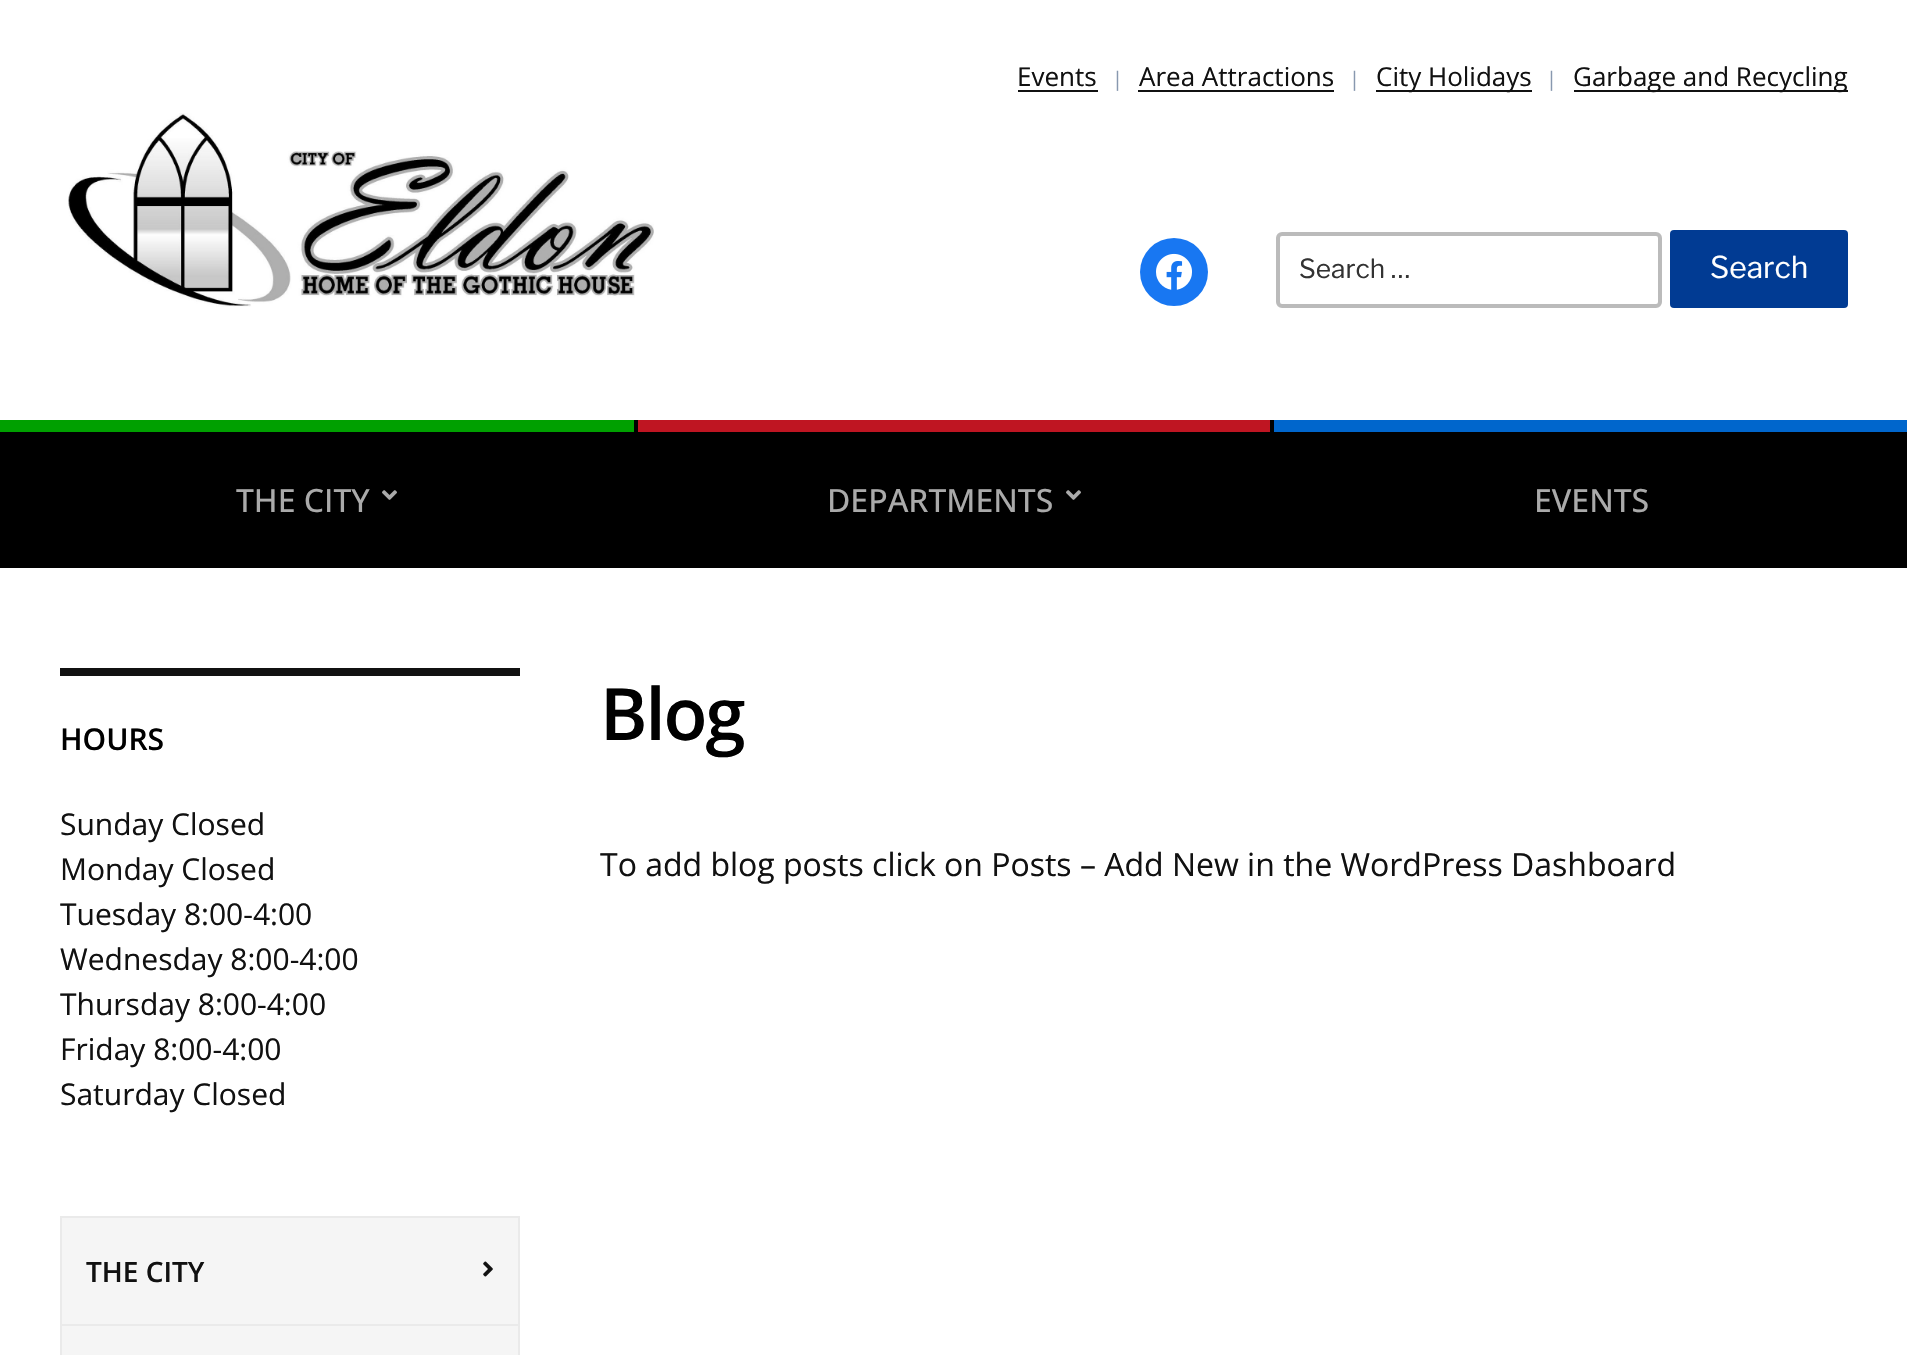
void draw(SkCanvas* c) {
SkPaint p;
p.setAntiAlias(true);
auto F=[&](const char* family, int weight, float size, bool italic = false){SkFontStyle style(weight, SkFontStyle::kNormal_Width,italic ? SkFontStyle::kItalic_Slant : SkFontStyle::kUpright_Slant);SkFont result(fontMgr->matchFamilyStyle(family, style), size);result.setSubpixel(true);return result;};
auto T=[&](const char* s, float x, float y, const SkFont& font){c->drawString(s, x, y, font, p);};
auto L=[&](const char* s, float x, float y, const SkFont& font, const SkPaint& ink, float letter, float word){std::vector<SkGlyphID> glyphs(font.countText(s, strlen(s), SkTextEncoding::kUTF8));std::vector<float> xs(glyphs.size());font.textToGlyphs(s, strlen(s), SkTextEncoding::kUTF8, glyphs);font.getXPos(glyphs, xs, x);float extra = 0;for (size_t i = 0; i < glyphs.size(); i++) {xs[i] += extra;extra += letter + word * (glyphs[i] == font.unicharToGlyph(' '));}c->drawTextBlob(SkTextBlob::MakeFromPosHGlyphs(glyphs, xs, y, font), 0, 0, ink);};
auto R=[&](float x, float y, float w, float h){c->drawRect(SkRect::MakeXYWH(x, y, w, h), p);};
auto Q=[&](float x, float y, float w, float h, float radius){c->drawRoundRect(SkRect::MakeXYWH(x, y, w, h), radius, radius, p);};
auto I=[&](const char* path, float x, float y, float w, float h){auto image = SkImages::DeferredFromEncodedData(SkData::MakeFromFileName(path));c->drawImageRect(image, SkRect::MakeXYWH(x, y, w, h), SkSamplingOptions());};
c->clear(0xffffffff);
I("1.png",68,113,586,194);
auto f1 = F("Open Sans",400,26);
p.setColor(0xff111111);
T("Events",1017,86,f1);
R(1018,90,80,2);
auto f2 = F("Open Sans",400,20);
p.setColor(0xff8898af);
T("|",1112,86,f2);
p.setColor(0xff111111);
T("Area Attractions",1139,86,f1);
R(1138,90,196,2);
p.setColor(0xff8898af);
T("|",1349,86,f2);
p.setColor(0xff111111);
R(1376,90,156,2);
T("City Holidays",1376,86,f1);
p.setColor(0xff8898af);
T("|",1546,86,f2);
p.setColor(0xff111111);
R(1574,90,274,2);
T("Garbage and Recycling",1573,86,f1);
p.setColor(0xff1877f2);
c->drawCircle(1174,272,34,p);
I("2.png",1156,253,36,37);
p.setStroke(true);
p.setStrokeWidth(4);
p.setColor(0xffbbbbbb);
c->drawRoundRect(SkRect::MakeXYWH(1278,234,382,72),4,4,p);
auto f3 = F("Libre Franklin",400,26.25);
p.setStroke(false);
p.setColor(0xff333333);
T("Search …",1299,278,f3);
p.setColor(0xff013b93);
Q(1670,230,178,78,4);
auto f4 = F("Libre Franklin",400,30);
p.setColor(0xffffffff);
T("Search",1710,278,f4);
p.setColor(0xff000000);
R(634,420,4,148);
R(0,432,634,136);
p.setColor(0xff00a000);
R(0,420,634,12);
auto f5 = F("Open Sans",500,32);
p.setColor(0xffaaaaaa);
T("THE CITY",236,512,f5);
I("3.png",382,490,15,10);
p.setColor(0xff000000);
R(1270,420,4,148);
R(638,432,632,136);
p.setColor(0xffbf1522);
R(638,420,632,12);
p.setColor(0xffaaaaaa);
T("DEPARTMENTS",827,512,f5);
I("3.png",1066,490,15,10);
p.setColor(0xff000000);
R(1274,432,633,136);
p.setColor(0xff0066cc);
R(1274,420,633,12);
p.setColor(0xffaaaaaa);
T("EVENTS",1534,512,f5);
p.setColor(0xff111111);
R(60,668,460,8);
auto f6 = F("Open Sans",600,30);
p.setColor(0xff000000);
T("HOURS",60,750,f6);
auto f7 = F("Open Sans",400,30);
p.setColor(0xff111111);
T("Sunday Closed",60,835,f7);
T("Monday Closed",60,880,f7);
T("Tuesday 8:00-4:00",60,925,f7);
T("Wednesday 8:00-4:00",60,970,f7);
T("Thursday 8:00-4:00",60,1015,f7);
T("Friday 8:00-4:00",60,1060,f7);
T("Saturday Closed",60,1105,f7);
p.setColor(0xfff5f5f5);
R(62,1218,456,106);
p.setColor(0xffeaeaea);
R(60,1216,460,2);
R(518,1216,2,108);
R(60,1216,2,108);
auto f8 = F("Open Sans",600,28);
p.setColor(0xff111111);
T("THE CITY",86,1282,f8);
I("4.png",483,1261,10,16);
p.setColor(0xfff5f5f5);
R(62,1326,456,29);
p.setColor(0xffeaeaea);
R(60,1324,460,2);
R(518,1324,2,31);
R(60,1324,2,31);
auto f9 = F("Open Sans",600,72);
p.setColor(0xff000000);
L("Blog",600,740,f9,p,-2,0);
auto f10 = F("Open Sans",400,32);
p.setColor(0xff111111);
T("To add blog posts click on Posts – Add New in the WordPress Dashboard",600,876,f10);
}
